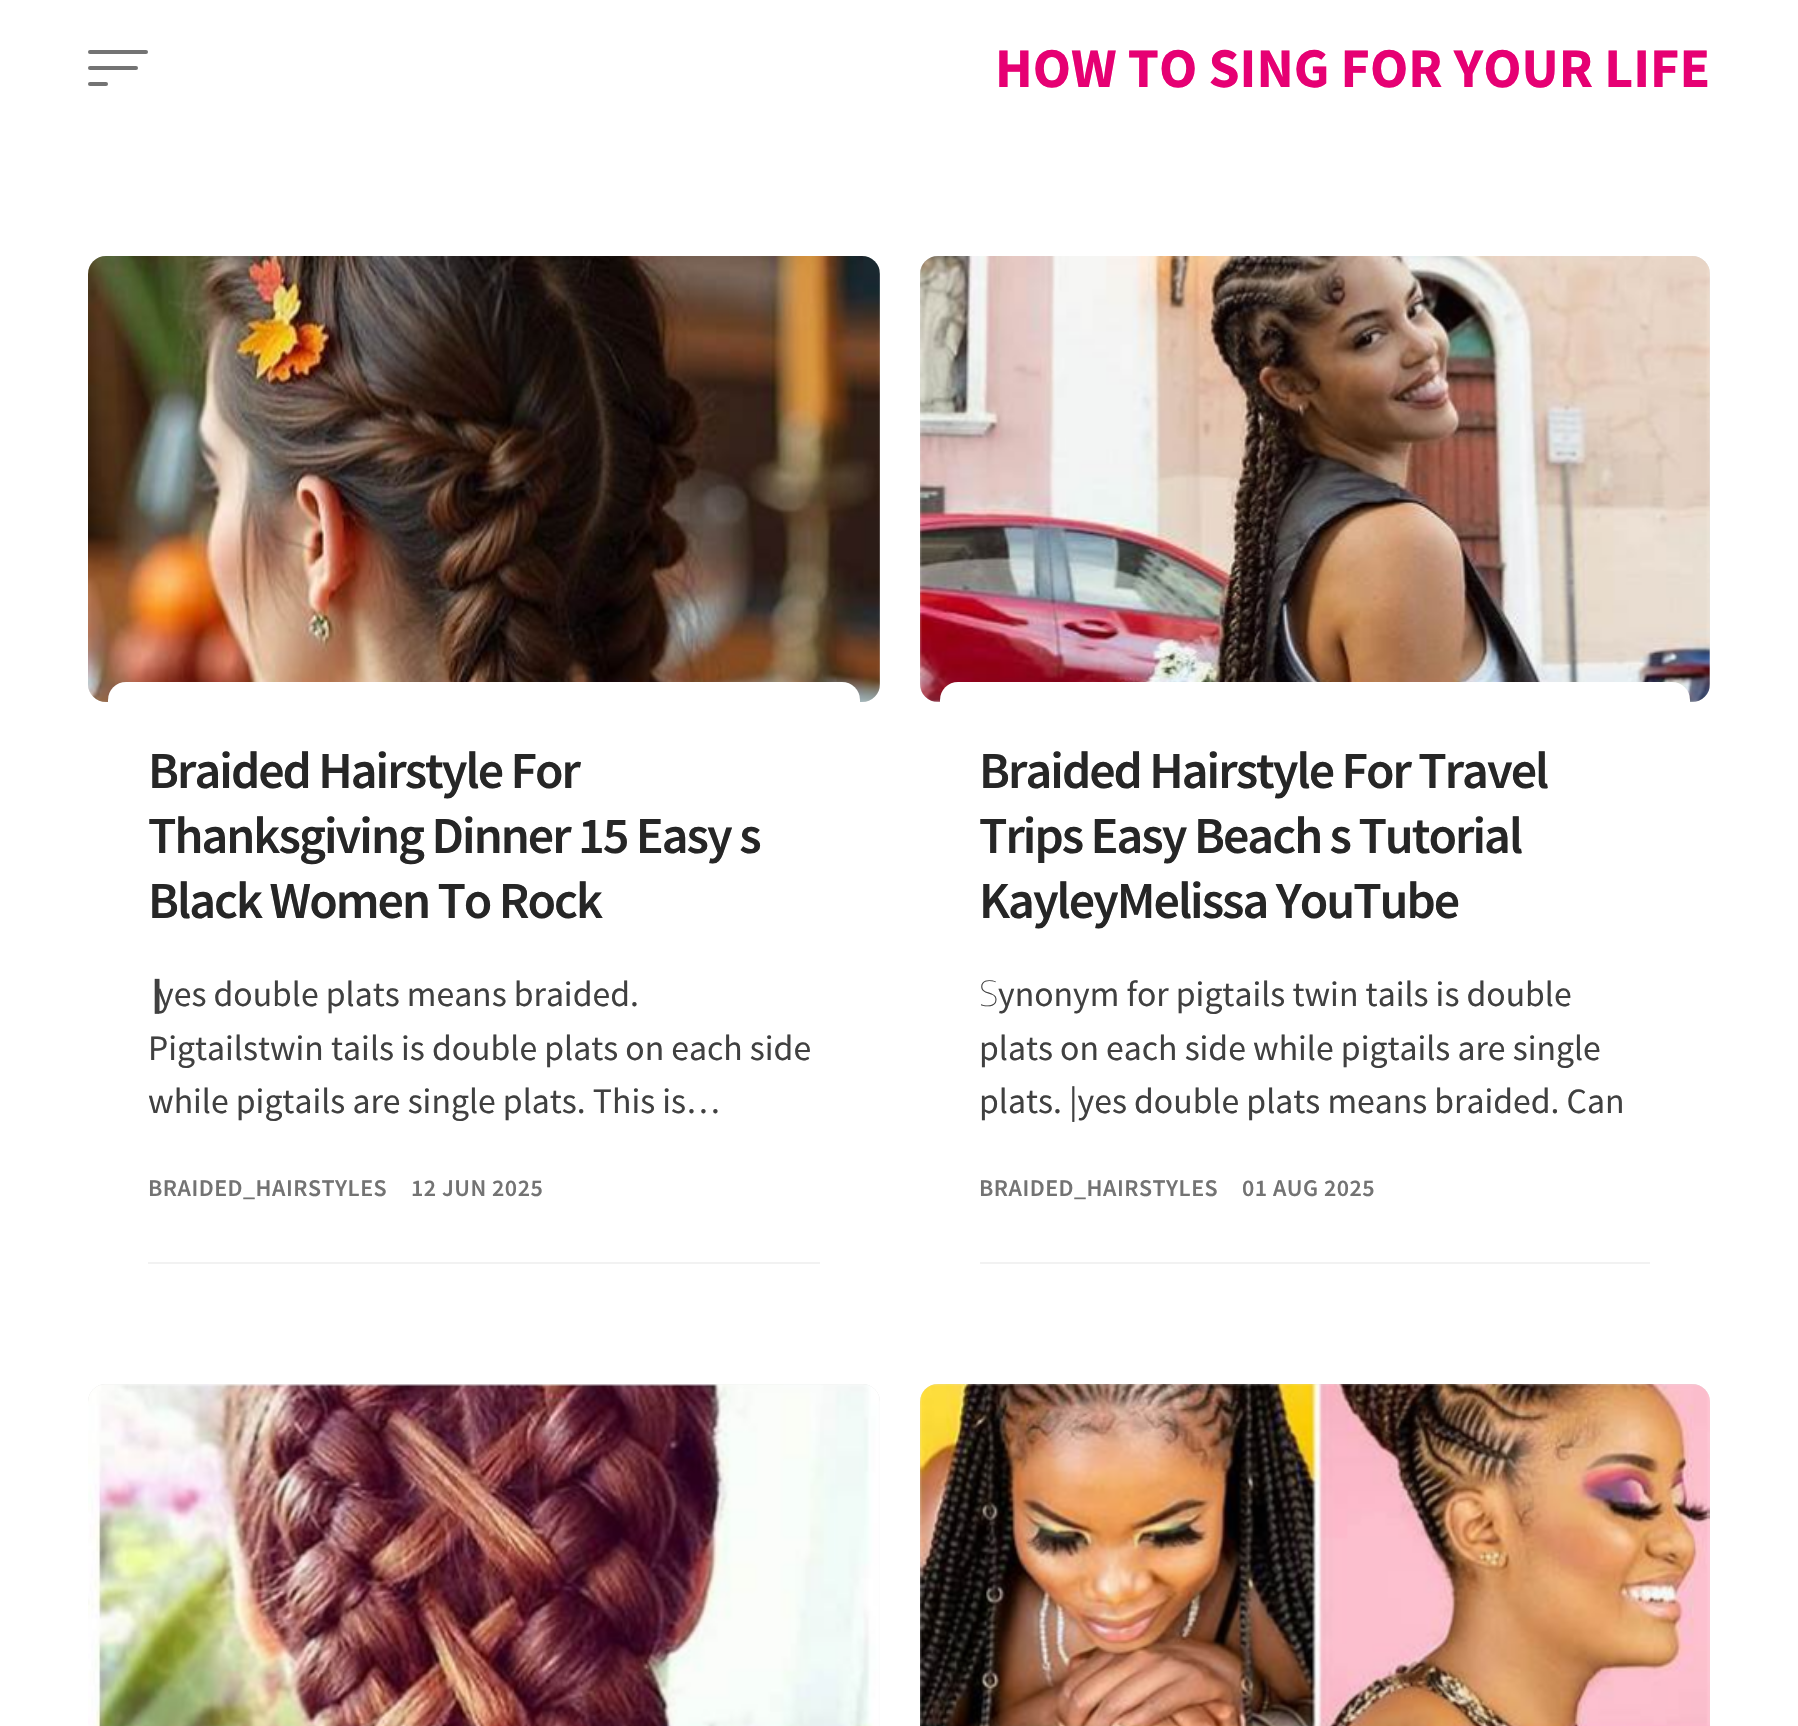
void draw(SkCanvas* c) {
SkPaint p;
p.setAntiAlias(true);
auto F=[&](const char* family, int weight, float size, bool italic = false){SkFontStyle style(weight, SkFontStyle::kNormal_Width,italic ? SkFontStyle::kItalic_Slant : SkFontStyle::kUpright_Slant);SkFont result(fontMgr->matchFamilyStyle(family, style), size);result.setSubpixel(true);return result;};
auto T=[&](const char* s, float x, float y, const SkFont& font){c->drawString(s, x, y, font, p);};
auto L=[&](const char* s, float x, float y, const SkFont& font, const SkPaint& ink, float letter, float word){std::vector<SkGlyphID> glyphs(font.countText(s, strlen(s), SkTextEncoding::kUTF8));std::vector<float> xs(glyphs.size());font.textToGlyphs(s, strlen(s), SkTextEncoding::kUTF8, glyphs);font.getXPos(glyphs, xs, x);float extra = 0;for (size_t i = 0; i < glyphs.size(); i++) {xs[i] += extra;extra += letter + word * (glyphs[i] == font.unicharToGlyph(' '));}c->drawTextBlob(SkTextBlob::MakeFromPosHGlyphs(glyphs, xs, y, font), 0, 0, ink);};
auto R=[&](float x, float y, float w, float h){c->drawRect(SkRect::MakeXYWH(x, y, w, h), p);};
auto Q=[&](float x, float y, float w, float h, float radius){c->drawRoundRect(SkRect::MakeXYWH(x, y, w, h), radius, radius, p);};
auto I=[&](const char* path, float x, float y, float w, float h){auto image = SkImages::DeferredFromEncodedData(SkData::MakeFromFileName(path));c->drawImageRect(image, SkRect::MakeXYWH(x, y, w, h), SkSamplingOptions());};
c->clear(0xffffffff);
p.setColor(0xff737373);
Q(88,50,60,4,2);
Q(88,66,50,4,2);
Q(88,82,20,4,2);
auto f1 = F("Source Sans Pro",700,56);
p.setColor(0xffe60073);
T("HOW TO SING FOR YOUR LIFE",995,87,f1);
p.setColor(0xffe1e1e1);
Q(88,256,792,446,18);
I("1.png",88,256,792,446);
p.setColor(0xffffffff);
Q(108,682,752,582,18);
auto f2 = F("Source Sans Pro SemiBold",600,52);
p.setColor(0xff262626);
L("Braided Hairstyle For",148,788,f2,p,-2,0);
L("Thanksgiving Dinner 15 Easy s",148,853,f2,p,-2,0);
L("Black Women To Rock",148,918,f2,p,-2,0);
auto f3 = F("Noto Sans",900,35.7);
p.setColor(0xff404040);
T("|",148,1006,f3);
auto f4 = F("Source Sans Pro",400,35.7);
T("yes double plats means braided.",157,1006,f4);
T("Pigtailstwin tails is double plats on each side",148,1060,f4);
T("while pigtails are single plats. This is…",148,1113,f4);
p.setColor(0xfff2f2f2);
R(148,1262,672,2);
auto f5 = F("Source Sans Pro SemiBold",600,24);
p.setColor(0xff737373);
L("BRAIDED_HAIRSTYLES",148,1196,f5,p,.5,0);
L("12 JUN 2025",411,1196,f5,p,.5,0);
p.setColor(0xffe1e1e1);
Q(920,256,790,446,18);
I("2.png",920,256,790,446);
p.setColor(0xffffffff);
Q(940,682,750,582,18);
p.setColor(0xff262626);
L("Braided Hairstyle For Travel",979,788,f2,p,-2,0);
L("Trips Easy Beach s Tutorial",979,853,f2,p,-2,0);
L("KayleyMelissa YouTube",979,918,f2,p,-2,0);
auto f6 = F("Noto Sans",100,35.7);
p.setColor(0xff404040);
T("S",979,1006,f6);
T("ynonym for pigtails twin tails is double",998,1006,f4);
T("plats on each side while pigtails are single",979,1060,f4);
T("plats. |yes double plats means braided. Can",979,1113,f4);
p.setColor(0xfff2f2f2);
R(980,1262,670,2);
p.setColor(0xff737373);
L("BRAIDED_HAIRSTYLES",979,1196,f5,p,.5,0);
L("01 AUG 2025",1242,1196,f5,p,.5,0);
p.setColor(0xffe1e1e1);
Q(88,1384,792,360,18);
I("3.png",88,1384,792,342);
Q(920,1384,790,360,18);
I("4.png",920,1384,790,342);
}
